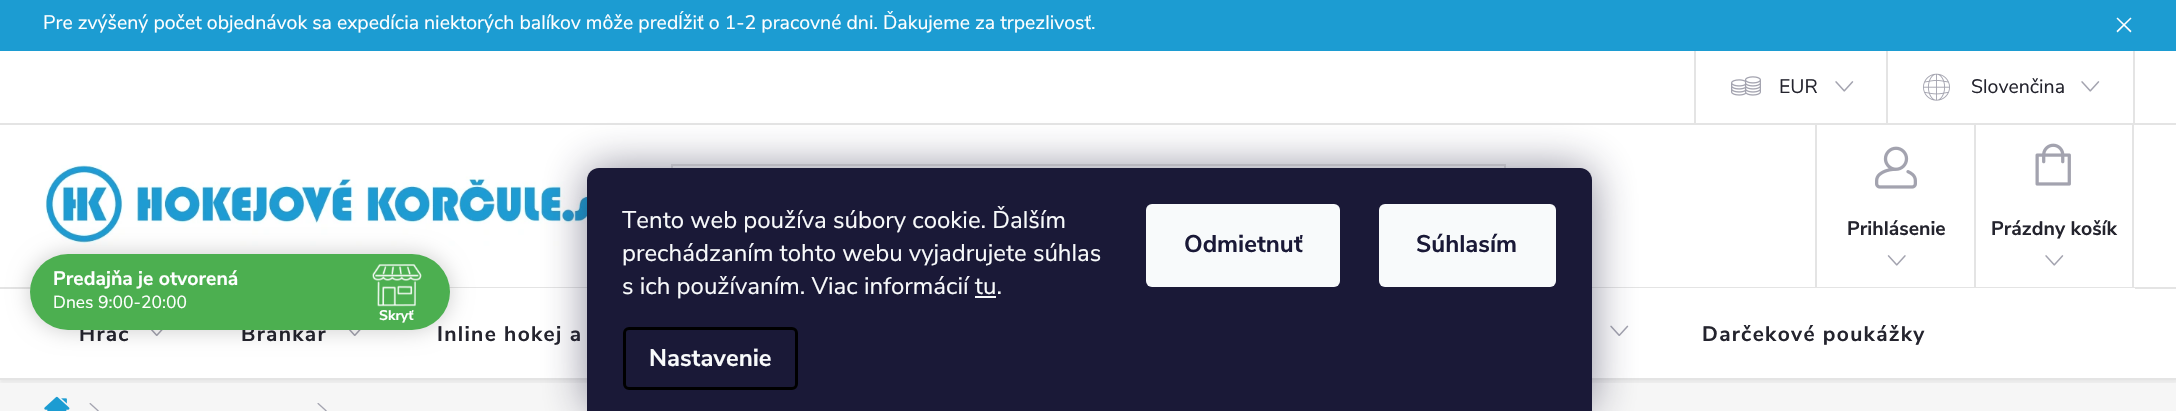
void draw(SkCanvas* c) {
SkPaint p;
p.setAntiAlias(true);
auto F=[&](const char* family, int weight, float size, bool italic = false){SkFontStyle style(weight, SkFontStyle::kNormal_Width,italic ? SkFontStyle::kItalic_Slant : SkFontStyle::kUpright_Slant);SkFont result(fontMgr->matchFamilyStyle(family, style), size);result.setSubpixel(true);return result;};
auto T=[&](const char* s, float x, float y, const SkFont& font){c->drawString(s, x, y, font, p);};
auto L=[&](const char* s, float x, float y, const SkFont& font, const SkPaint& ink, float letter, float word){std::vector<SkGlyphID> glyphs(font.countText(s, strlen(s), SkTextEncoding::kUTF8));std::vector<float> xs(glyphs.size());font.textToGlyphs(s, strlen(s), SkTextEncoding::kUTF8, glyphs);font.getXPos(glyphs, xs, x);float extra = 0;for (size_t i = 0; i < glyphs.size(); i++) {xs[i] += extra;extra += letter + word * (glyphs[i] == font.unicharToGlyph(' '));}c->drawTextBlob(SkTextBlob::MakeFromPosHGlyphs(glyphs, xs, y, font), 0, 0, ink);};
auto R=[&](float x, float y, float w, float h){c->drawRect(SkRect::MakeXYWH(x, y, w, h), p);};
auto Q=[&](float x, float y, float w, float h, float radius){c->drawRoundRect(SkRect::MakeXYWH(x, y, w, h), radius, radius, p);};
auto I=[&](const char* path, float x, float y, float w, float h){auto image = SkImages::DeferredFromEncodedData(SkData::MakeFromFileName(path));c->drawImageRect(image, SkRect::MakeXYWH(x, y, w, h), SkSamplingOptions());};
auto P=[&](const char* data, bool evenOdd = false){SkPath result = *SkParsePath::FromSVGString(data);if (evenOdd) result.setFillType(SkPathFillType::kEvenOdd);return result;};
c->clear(0xffffffff);
p.setColor(0xff1c9cd2);
R(0,0,2176,51);
auto f1 = F("Nunito Sans",400,19.5);
p.setColor(0xffffffff);
T("Pre zvýšený počet objednávok sa expedícia niektorých balíkov môže predĺžiť o 1-2 pracovné dni. Ďakujeme za trpezlivosť.",43,29,f1);
c->drawPath(P("M2130.5 17.5l1 1l-14 14l-1-1.5z"),p);
c->drawPath(P("M2117.5 17.5l14 13.5l-1 1.5l-14-14z"),p);
p.setColor(0xffe4e4e4);
R(0,123,2176,2);
R(2133,51,2,72);
R(1694,51,2,72);
I("1.png",1731,76,30,20);
p.setColor(0xff24242e);
T("EUR",1779,93,f1);
I("2.png",1835,81,19,11);
p.setColor(0xffe4e4e4);
R(1886,51,2,72);
I("3.png",1923,73,27,28);
p.setColor(0xff24242e);
T("Slovenčina",1971,93,f1);
I("2.png",2081,81,19,11);
I("4.png",45,165,578,81);
p.setStroke(true);
p.setStrokeWidth(2);
p.setColor(0xffe4e4e4);
c->drawRect(SkRect::MakeXYWH(672,165,833,82),p);
p.setStroke(false);
R(1815,125,2,162);
I("5.png",1875,146,42,43);
auto f2 = F("Nunito Sans",700,19.5);
p.setColor(0xff24242e);
T("Prihlásenie",1847,235,f2);
I("6.png",1887,255,19,11);
p.setColor(0xffe4e4e4);
R(2132,125,2,162);
R(1974,125,2,162);
I("7.png",2035,143,36,43);
p.setColor(0xff24242e);
T("Prázdny košík",1991,235,f2);
I("2.png",2045,255,19,11);
p.setColor(0xfff6f6f6);
R(0,380,2176,31);
c->save();
c->clipRect(SkRect::MakeXYWH(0,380,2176,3));
p.setColor(0x0d000000);
p.setMaskFilter(SkMaskFilter::MakeBlur(kNormal_SkBlurStyle, 1.5));
c->drawRect(SkRect::MakeXYWH(0,290,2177,93),p);
p.setMaskFilter(nullptr);
c->restore();
p.setColor(0xffe4e4e4);
R(0,287,2176,2);
p.setColor(0xffffffff);
R(44,288,2091,1);
auto f3 = F("Nunito Sans",700,21);
p.setColor(0xff24242e);
L("Hráč",79,341,f3,p,1.3,0);
I("8.png",151,330,12,6);
L("Brankár",241,341,f3,p,1.3,0);
I("8.png",349,330,12,6);
L("Inline hokej a",437,341,f3,p,1.3,0);
I("9.png",1610,325,19,11);
L("Darčekové poukážky",1702,341,f3,p,1.3,0);
p.setColor(0xffe4e4e4);
R(0,378,2176,2);
I("10.png",44,396,26,15);
I("11.png",89,403,10,8);
I("12.png",317,403,10,8);
p.setColor(0x33000000);
p.setMaskFilter(SkMaskFilter::MakeBlur(kNormal_SkBlurStyle, 11));
c->drawRoundRect(SkRect::MakeXYWH(30,254,420,76),38,38,p);
p.setMaskFilter(nullptr);
p.setColor(0xff4caf50);
Q(30,254,420,76,38);
p.setColor(0xffffffff);
T("Predajňa je otvorená",53,285,f2);
auto f4 = F("Nunito Sans",400,17.5);
T("Dnes 9:00-20:00",53,308,f4);
I("13.png",372,264,50,43);
auto f5 = F("Nunito Sans",700,14);
T("Skryť",379,320,f5);
p.setColor(0x801b1939);
p.setMaskFilter(SkMaskFilter::MakeBlur(kNormal_SkBlurStyle, 22.5));
c->drawRoundRect(SkRect::MakeXYWH(587,168,1005,243),12,12,p);
p.setMaskFilter(nullptr);
p.setColor(0xff1a1937);
c->drawPath(P("M599 168h981c6.5 0 12 5.5 12 12v231h-1005v-231c0-6.5 5.5-12 12-12z"),p);
auto f6 = F("Nunito Sans",400,24);
p.setColor(0xfff8fafb);
T("Tento web používa súbory cookie. Ďalším",622,228,f6);
T("prechádzaním tohto webu vyjadrujete súhlas",622,261,f6);
T("s ich používaním. Viac informácií tu.",622,294,f6);
R(975,296,21,2);
p.setStroke(true);
p.setStrokeWidth(3);
p.setColor(0xff000000);
c->drawRoundRect(SkRect::MakeXYWH(624.5,328.5,172,60),4.5,4.5,p);
auto f7 = F("Nunito Sans",700,24);
p.setStroke(false);
p.setColor(0xfff8fafb);
T("Nastavenie",649,366,f7);
Q(1146,204,194,83,6);
p.setColor(0xff1a1937);
T("Odmietnuť",1184,252,f7);
p.setColor(0xfff8fafb);
Q(1379,204,177,83,6);
p.setColor(0xff1a1937);
T("Súhlasím",1416,252,f7);
}
